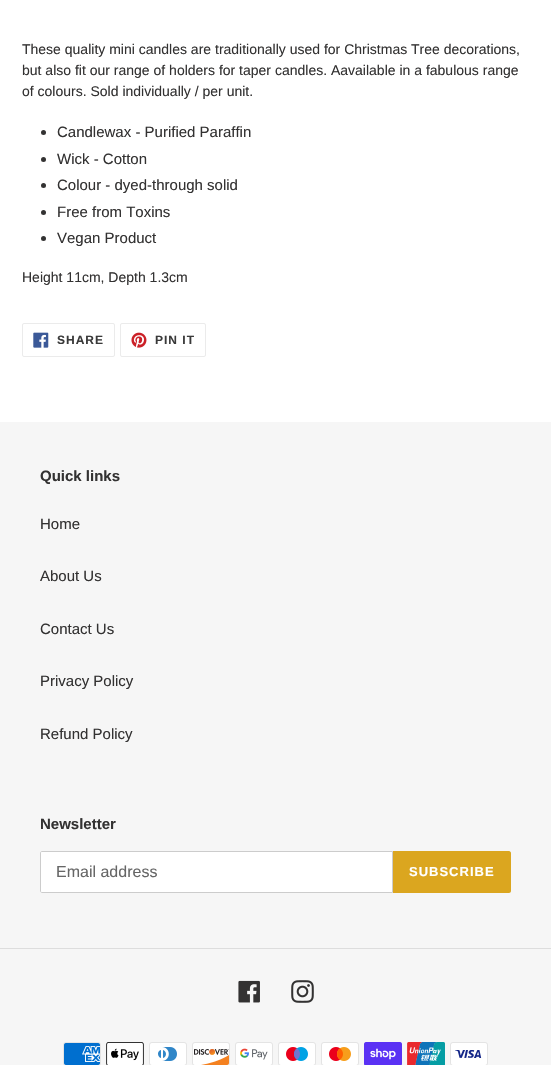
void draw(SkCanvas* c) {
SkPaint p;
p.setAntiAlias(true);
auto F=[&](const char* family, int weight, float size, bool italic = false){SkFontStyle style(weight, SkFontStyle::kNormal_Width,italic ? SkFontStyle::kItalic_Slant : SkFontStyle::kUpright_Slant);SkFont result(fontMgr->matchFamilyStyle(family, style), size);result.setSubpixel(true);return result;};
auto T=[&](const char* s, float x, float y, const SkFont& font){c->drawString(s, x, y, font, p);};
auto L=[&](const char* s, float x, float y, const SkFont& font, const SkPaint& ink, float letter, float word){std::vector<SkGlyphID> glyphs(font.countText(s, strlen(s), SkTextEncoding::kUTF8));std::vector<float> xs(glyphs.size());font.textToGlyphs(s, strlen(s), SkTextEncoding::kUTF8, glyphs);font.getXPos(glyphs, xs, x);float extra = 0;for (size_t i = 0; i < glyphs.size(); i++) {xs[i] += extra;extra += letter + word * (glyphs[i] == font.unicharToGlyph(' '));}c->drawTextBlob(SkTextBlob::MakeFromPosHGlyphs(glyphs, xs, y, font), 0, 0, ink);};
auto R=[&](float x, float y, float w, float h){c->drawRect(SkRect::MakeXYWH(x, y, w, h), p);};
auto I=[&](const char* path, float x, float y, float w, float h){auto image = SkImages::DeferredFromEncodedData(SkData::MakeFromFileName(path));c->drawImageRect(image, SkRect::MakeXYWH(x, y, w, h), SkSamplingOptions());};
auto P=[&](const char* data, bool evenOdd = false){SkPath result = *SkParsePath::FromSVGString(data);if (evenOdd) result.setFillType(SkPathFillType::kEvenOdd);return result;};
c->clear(0xffffffff);
auto f1 = F("Liberation Sans",400,14);
p.setColor(0xff333232);
T("These quality mini candles are traditionally used for Christmas Tree decorations,",22,54,f1);
T("but also fit our range of holders for taper candles. Aavailable in a fabulous range",22,75,f1);
T("of colours. Sold individually / per unit.",22,96,f1);
c->drawCircle(43.5,132.5,2.5,p);
auto f2 = F("Liberation Sans",400,15);
T("Candlewax - Purified Paraffin",57,137,f2);
c->drawCircle(43.5,159.5,2.5,p);
T("Wick - Cotton",57,164,f2);
c->drawCircle(43.5,185.5,2.5,p);
T("Colour - dyed-through solid",57,190,f2);
c->drawCircle(43.5,212.5,2.5,p);
T("Free from Toxins",57,217,f2);
c->drawCircle(43.5,238.5,2.5,p);
T("Vegan Product",57,243,f2);
T("Height 11cm, Depth 1.3cm",22,282,f1);
p.setStroke(true);
p.setStrokeWidth(1);
p.setColor(0xffebebeb);
c->drawRoundRect(SkRect::MakeXYWH(22.5,323.5,92,33),1.5,1.5,p);
I("1.png",33,332,16,16);
auto f3 = F("Liberation Sans",700,12);
p.setStroke(false);
p.setColor(0xff3a3a3a);
L("SHARE",57,344,f3,p,1,0);
p.setStroke(true);
p.setColor(0xffebebeb);
c->drawRoundRect(SkRect::MakeXYWH(120.5,323.5,85,33),1.5,1.5,p);
I("2.png",131,332,16,16);
p.setStroke(false);
p.setColor(0xff3a3a3a);
L("PIN IT",155,344,f3,p,1,0);
p.setColor(0xfff6f6f6);
R(0,422,551,643);
auto f4 = F("Liberation Sans",700,15);
p.setColor(0xff333232);
T("Quick links",40,481,f4);
T("Home",40,529,f2);
T("About Us",40,581,f2);
T("Contact Us",40,634,f2);
T("Privacy Policy",40,686,f2);
T("Refund Policy",40,739,f2);
T("Newsletter",40,829,f4);
p.setColor(0xffffffff);
c->drawPath(P("M42 851.5h350.5v41h-350.5c-1 0-1.5-.5-1.5-1.5v-38c0-1 .5-1.5 1.5-1.5z"),p);
p.setStroke(true);
p.setColor(0xffcccccc);
c->drawPath(P("M42 851.5h350.5v41h-350.5c-1 0-1.5-.5-1.5-1.5v-38c0-1 .5-1.5 1.5-1.5z"),p);
auto f5 = F("Liberation Sans",400,16);
p.setStroke(false);
p.setColor(0xff666666);
T("Email address",56,877,f5);
p.setColor(0xffdba61f);
c->drawPath(P("M393 851h116c1 0 2 1 2 2v38c0 1-1 2-2 2h-116z"),p);
auto f6 = F("Liberation Sans",700,13);
p.setColor(0xffffffff);
L("SUBSCRIBE",409,876,f6,p,1,0);
p.setColor(0xffdddddd);
R(0,948,551,1);
I("3.png",238,980,22,23);
I("4.png",291,980,23,23);
I("5.png",63,1042,38,23);
I("6.png",106,1042,38,23);
I("7.png",149,1042,38,23);
I("8.png",192,1042,38,23);
I("9.png",235,1042,38,23);
I("10.png",278,1042,38,23);
I("11.png",321,1042,38,23);
I("12.png",364,1042,38,23);
I("13.png",407,1042,38,23);
I("14.png",450,1042,38,23);
}
